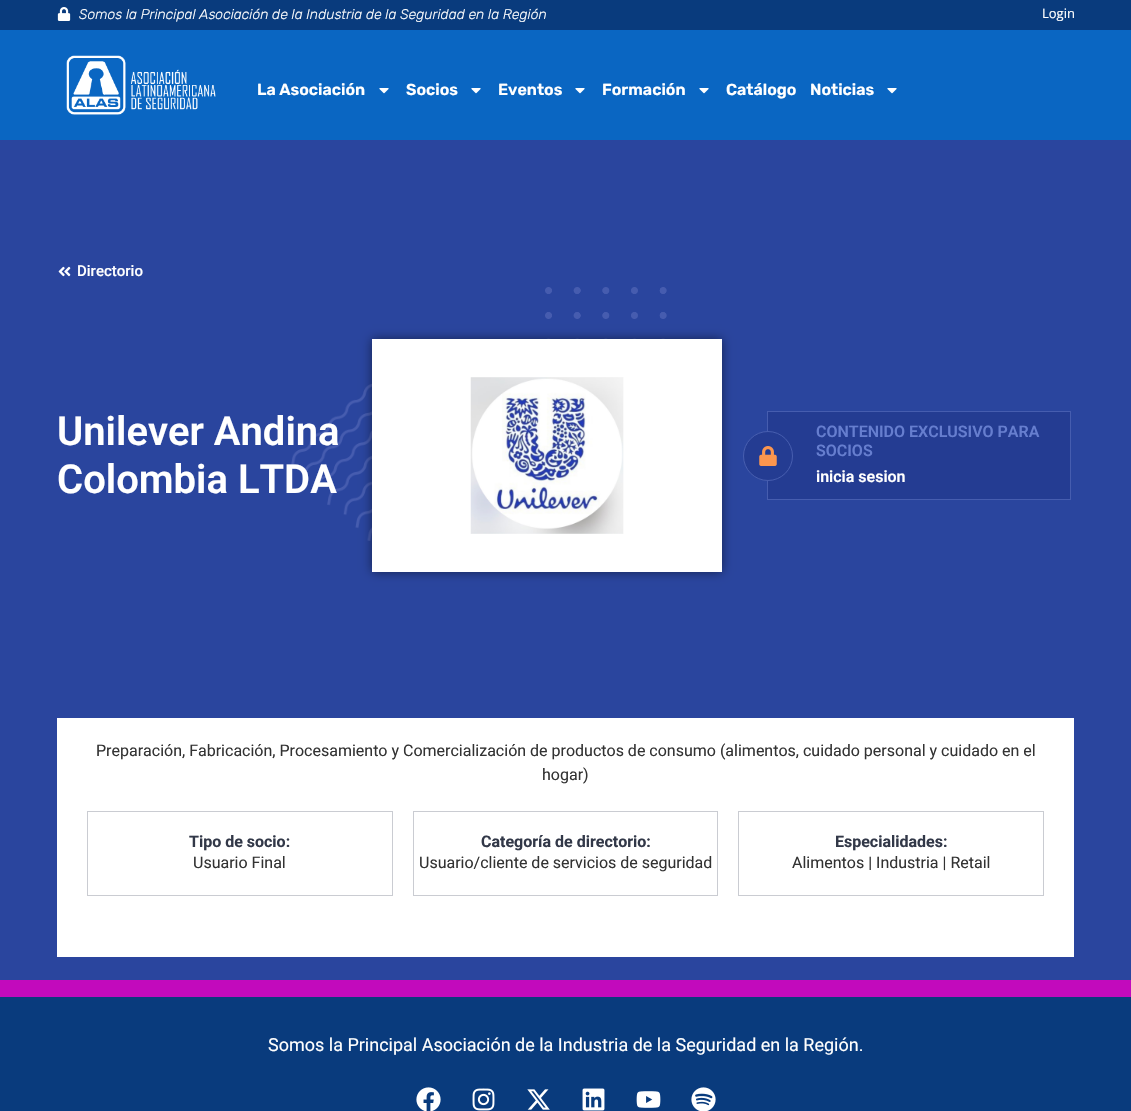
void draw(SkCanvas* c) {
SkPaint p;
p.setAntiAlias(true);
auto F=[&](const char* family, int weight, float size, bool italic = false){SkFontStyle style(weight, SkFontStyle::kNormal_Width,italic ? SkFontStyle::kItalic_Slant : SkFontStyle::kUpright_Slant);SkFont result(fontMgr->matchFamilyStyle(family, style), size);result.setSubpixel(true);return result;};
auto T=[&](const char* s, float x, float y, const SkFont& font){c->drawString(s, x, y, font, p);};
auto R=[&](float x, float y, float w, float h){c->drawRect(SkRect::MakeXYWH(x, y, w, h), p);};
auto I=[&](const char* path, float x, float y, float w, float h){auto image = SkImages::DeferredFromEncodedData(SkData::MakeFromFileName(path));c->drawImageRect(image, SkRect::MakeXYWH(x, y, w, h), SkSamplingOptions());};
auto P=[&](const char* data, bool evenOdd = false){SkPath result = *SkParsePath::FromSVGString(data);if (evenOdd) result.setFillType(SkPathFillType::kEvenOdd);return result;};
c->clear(0xff093b7d);
I("1.png",57,7,14,14);
auto f1 = F("Rubik",300,14,true);
p.setColor(0xffffffff);
T("Somos la Principal Asociación de la Industria de la Seguridad en la Región",79,19,f1);
auto f2 = F("Open Sans",400,13);
T("Login",1042,18,f2);
p.setColor(0xff0a66c2);
R(0,30,1131,110);
I("2.png",66,55,150,60);
auto f3 = F("Rubik",600,16);
p.setColor(0xffffffff);
T("La Asociación",257,95,f3);
I("3.png",379,88,10,6);
T("Socios",406,95,f3);
I("3.png",471,88,10,6);
T("Eventos",498,95,f3);
I("3.png",575,88,10,6);
T("Formación",602,95,f3);
I("3.png",699,88,10,6);
T("Catálogo",726,95,f3);
T("Noticias",810,95,f3);
I("3.png",887,88,10,6);
p.setColor(0xff2a459e);
R(0,140,1131,840);
I("4.png",58,266,13,11);
auto f4 = F("Roboto",500,15);
p.setColor(0xffffffff);
T("Directorio",77,276,f4);
I("5.png",545,287,122,52);
I("6.png",291,383,81,158);
auto f5 = F("Roboto",600,40);
T("Unilever Andina",57,445,f5);
T("Colombia LTDA",57,493,f5);
R(372,339,350,233);
c->save();
c->clipPath(P("M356 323h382v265h-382zm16 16h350v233h-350z",true),true);
p.setColor(0x80000000);
p.setMaskFilter(SkMaskFilter::MakeBlur(kNormal_SkBlurStyle, 5));
c->drawRect(SkRect::MakeXYWH(372,339,350,233),p);
p.setMaskFilter(nullptr);
c->restore();
I("7.png",470,377,154,157);
p.setColor(0xff243c92);
c->drawRect(SkRect::MakeXYWH(767.5,411.5,303,88),p);
p.setStroke(true);
p.setStrokeWidth(1);
p.setColor(0xff465daf);
c->drawRect(SkRect::MakeXYWH(767.5,411.5,303,88),p);
p.setStroke(false);
p.setColor(0xff243c92);
c->drawCircle(768,456,24.5,p);
p.setStroke(true);
p.setColor(0xff465daf);
c->drawCircle(768,456,24.5,p);
I("8.png",759,446,18,20);
auto f6 = F("Roboto",600,16);
p.setStroke(false);
p.setColor(0xff667ecf);
T("CONTENIDO EXCLUSIVO PARA",816,437,f6);
T("SOCIOS",816,456,f6);
p.setColor(0xffffffff);
T("inicia sesion",816,482,f6);
R(57,718,1017,239);
auto f7 = F("Roboto",400,16);
p.setColor(0xff333333);
T("Preparación, Fabricación, Procesamiento y Comercialización de productos de consumo (alimentos, cuidado personal y cuidado en el",96,756,f7);
T("hogar)",542,780,f7);
p.setStroke(true);
p.setColor(0xffcaccd2);
c->drawRect(SkRect::MakeXYWH(87.5,811.5,305,84),p);
auto f8 = F("Roboto",700,16);
p.setStroke(false);
p.setColor(0xff323848);
T("Tipo de socio:",189,847,f8);
p.setColor(0xff333333);
T("Usuario Final",193,868,f7);
p.setStroke(true);
p.setColor(0xffcaccd2);
c->drawRect(SkRect::MakeXYWH(413.5,811.5,304,84),p);
p.setStroke(false);
p.setColor(0xff323848);
T("Categoría de directorio:",481,847,f8);
p.setColor(0xff333333);
T("Usuario/cliente de servicios de seguridad",419,868,f7);
p.setStroke(true);
p.setColor(0xffcaccd2);
c->drawRect(SkRect::MakeXYWH(738.5,811.5,305,84),p);
p.setStroke(false);
p.setColor(0xff323848);
T("Especialidades:",835,847,f8);
p.setColor(0xff333333);
T("Alimentos | Industria | Retail",792,868,f7);
p.setColor(0xffc20abc);
R(0,980,1131,17);
auto f9 = F("Roboto",400,18);
p.setColor(0xffffffff);
T("Somos la Principal Asociación de la Industria de la Seguridad en la Región.",268,1051,f9);
I("9.png",416,1087,25,24);
I("10.png",472,1088,23,23);
I("11.png",527,1089,23,21);
I("12.png",582,1088,23,23);
I("13.png",636,1091,25,17);
I("14.png",691,1087,25,24);
}
